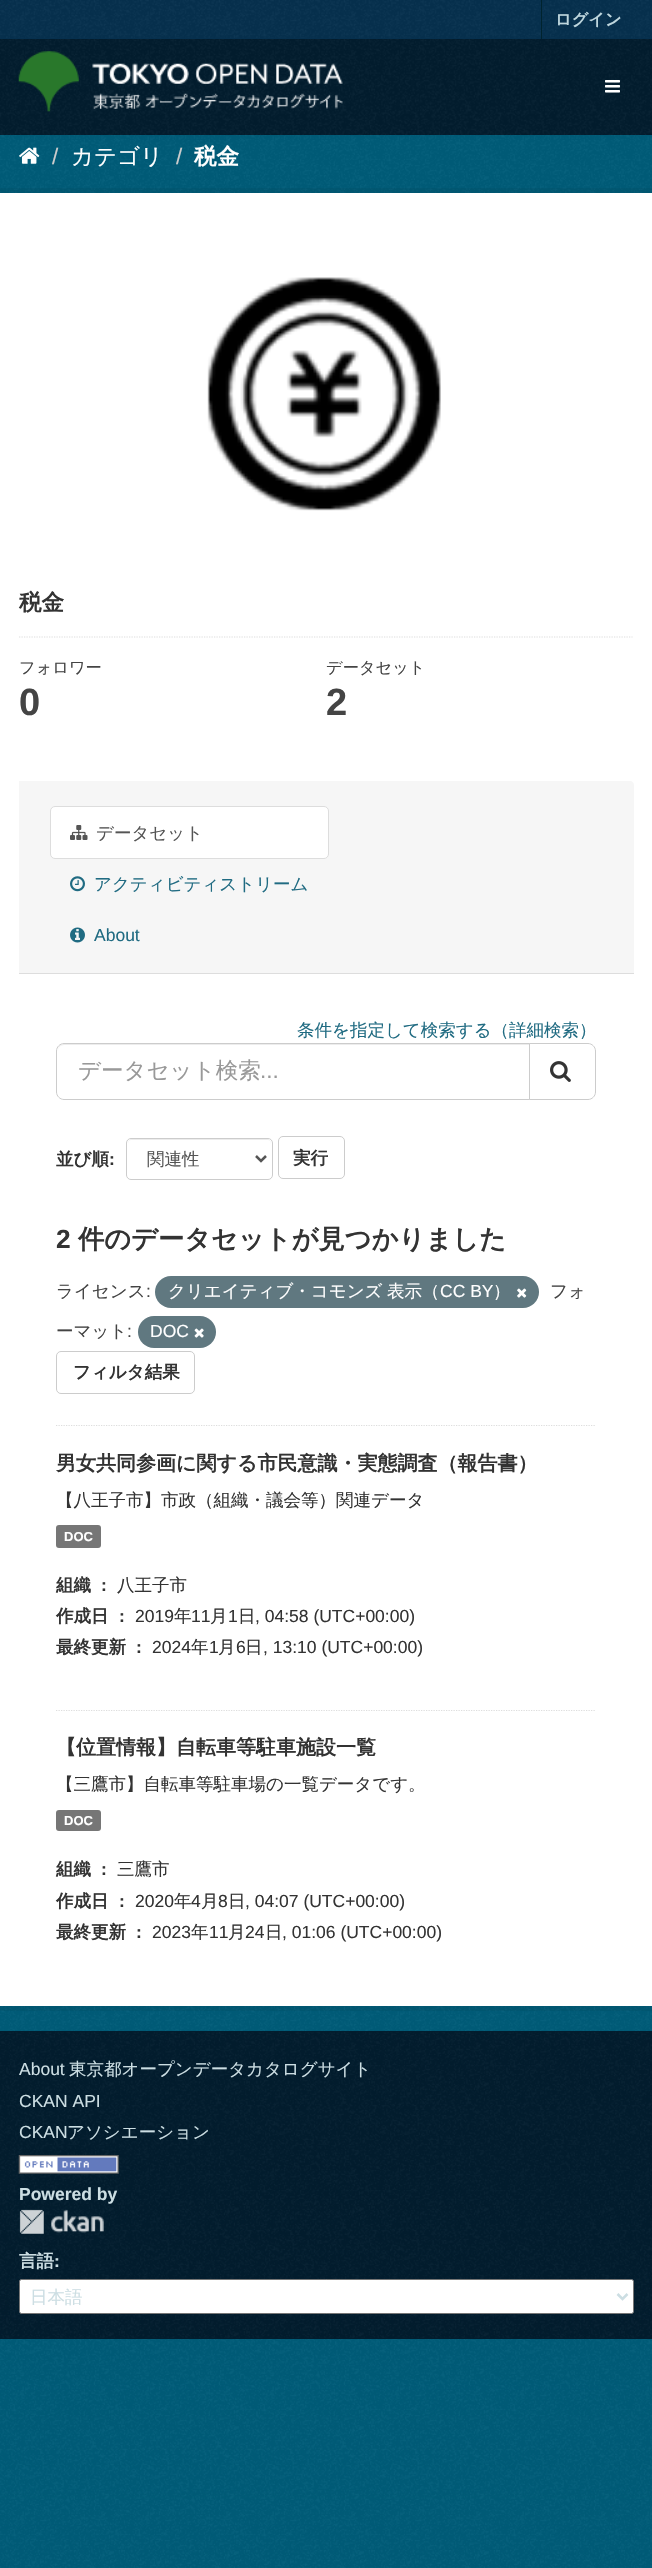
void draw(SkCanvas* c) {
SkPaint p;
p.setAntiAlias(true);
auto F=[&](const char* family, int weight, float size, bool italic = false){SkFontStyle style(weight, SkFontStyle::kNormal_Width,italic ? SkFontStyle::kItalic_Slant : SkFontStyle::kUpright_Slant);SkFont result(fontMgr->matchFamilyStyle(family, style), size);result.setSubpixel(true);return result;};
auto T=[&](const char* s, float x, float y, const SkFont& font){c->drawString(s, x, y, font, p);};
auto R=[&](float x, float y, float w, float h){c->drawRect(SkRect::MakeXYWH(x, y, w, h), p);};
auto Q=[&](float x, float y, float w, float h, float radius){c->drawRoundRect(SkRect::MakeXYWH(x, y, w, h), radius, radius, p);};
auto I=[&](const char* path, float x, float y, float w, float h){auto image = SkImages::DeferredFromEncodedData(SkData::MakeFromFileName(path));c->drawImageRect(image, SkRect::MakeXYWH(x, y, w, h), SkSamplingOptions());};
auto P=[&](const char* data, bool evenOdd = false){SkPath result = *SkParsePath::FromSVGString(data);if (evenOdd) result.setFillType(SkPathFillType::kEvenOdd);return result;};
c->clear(0xff005d7a);
I("1.png",0,135,652,2433);
p.setColor(0xff06304e);
R(0,0,652,39);
I("2.png",0,0,652,38);
p.setColor(0xff00232e);
R(541,0,1,39);
auto f1 = F("WenQuanYi Zen Hei",700,16.25);
p.setColor(0xffbfd7de);
T("ログイン",555,25,f1);
p.setColor(0xff021d2e);
R(0,39,652,96);
I("3.png",0,39,652,96);
I("4.png",18,51,325,61);
I("5.png",605,80,15,13);
I("6.png",19,147,21,17);
auto f2 = F("Liberation Sans",400,22.5);
p.setColor(0xffcccccc);
T("/",52,164,f2);
auto f3 = F("WenQuanYi Zen Hei",500,22.5);
p.setColor(0xffffffff);
T("カテゴリ",71,164,f3);
p.setColor(0xffcccccc);
T("/",176,164,f2);
auto f4 = F("WenQuanYi Zen Hei",700,22.5);
p.setColor(0xffffffff);
T("税金",194,164,f4);
p.setStroke(true);
p.setStrokeWidth(5);
p.setColor(0x0d000000);
c->drawRect(SkRect::MakeXYWH(-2.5,190.5,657,1818),p);
p.setStroke(false);
p.setColor(0xffffffff);
R(0,193,652,1813);
I("7.png",207,277,234,234);
p.setColor(0xff333333);
T("税金",19,610,f4);
p.setStroke(true);
p.setStrokeWidth(1.2);
p.setColor(0xffdddddd);
p.setPathEffect(SkDashPathEffect::Make({{1.25f,1.25f}}, 0));
c->drawPath(P("M19 637h613.5"),p);
p.setPathEffect(nullptr);
auto f5 = F("WenQuanYi Zen Hei",500,16.25);
p.setStroke(false);
p.setColor(0xff444444);
T("フォロワー",19,673,f5);
auto f6 = F("Liberation Sans",700,38);
T("0",19,715,f6);
T("データセット",326,673,f5);
T("2",326,715,f6);
p.setColor(0xfff6f6f6);
c->drawPath(P("M19 781h611c2 0 4 2 4 4v189h-615z"),p);
p.setColor(0xffdddddd);
R(19,973,615,1);
p.setColor(0xffffffff);
c->drawRoundRect(SkRect::MakeXYWH(50.5,806.5,278,52),4.5,4.5,p);
p.setStroke(true);
p.setStrokeWidth(1);
p.setColor(0xffdddddd);
c->drawRoundRect(SkRect::MakeXYWH(50.5,806.5,278,52),4.5,4.5,p);
I("8.png",70,825,18,15);
auto f7 = F("WenQuanYi Zen Hei",500,17.5);
p.setStroke(false);
p.setColor(0xff555555);
T("データセット",96,839,f7);
I("9.png",70,876,15,16);
p.setColor(0xff206b82);
T("アクティビティストリーム",94,890,f7);
I("10.png",70,927,15,16);
auto f8 = F("Liberation Sans",400,17.5);
T("About",94,941,f8);
p.setStroke(true);
p.setStrokeWidth(1.2);
p.setColor(0xffdddddd);
p.setPathEffect(SkDashPathEffect::Make({{1.25f,1.25f}}, 0));
c->drawPath(P("M56 1425.5h540"),p);
p.setPathEffect(nullptr);
p.setStroke(false);
p.setColor(0xff206b82);
T("条件を指定して検索する（詳細検索）",297,1036,f7);
p.setColor(0xffececec);
c->drawPath(P("M64 1045h465v-1h-465c-4 0-6 3-6 7c0-3 2-6 6-6z"),p);
p.setStroke(true);
p.setStrokeWidth(1);
p.setColor(0xffcccccc);
c->drawPath(P("M64 1043.5h465.5v56h-465.5c-4 0-7.5-3.5-7.5-7.5v-41c0-4 3.5-7.5 7.5-7.5z"),p);
p.setStroke(false);
p.setColor(0xff999999);
T("データセット検索",78,1078,f3);
T("...",260,1078,f2);
p.setColor(0xffffffff);
c->drawPath(P("M529.5 1043.5h58.5c4 0 7.5 3.5 7.5 7.5v41c0 4-3.5 7.5-7.5 7.5h-58.5z"),p);
p.setStroke(true);
p.setColor(0xffcccccc);
c->drawPath(P("M529.5 1043.5h58.5c4 0 7.5 3.5 7.5 7.5v41c0 4-3.5 7.5-7.5 7.5h-58.5z"),p);
I("11.png",550,1061,21,21);
auto f9 = F("WenQuanYi Zen Hei",700,17.5);
p.setStroke(false);
p.setColor(0xff333333);
T("並び順",56,1165,f9);
auto f10 = F("Liberation Sans",700,17.5);
T(":",109,1165,f10);
p.setColor(0xffececec);
c->drawPath(P("M131 1140h137c2 0 3 2 3 4v-1c0-2-2-4-4-4h-135c-2 0-4 2-4 4v1c0-2 1-4 3-4z"),p);
p.setStroke(true);
p.setColor(0xffcccccc);
c->drawRoundRect(SkRect::MakeXYWH(126.5,1138.5,146,41),4.5,4.5,p);
p.setStrokeWidth(2.5);
p.setColor(0xff555555);
c->drawPath(P("M256 1156l5 5l5-5"),p);
p.setStroke(false);
T("関連性",147,1165,f7);
p.setStroke(true);
p.setStrokeWidth(1);
p.setColor(0xffcccccc);
c->drawRoundRect(SkRect::MakeXYWH(278.5,1136.5,66,42),4.5,4.5,p);
p.setStroke(false);
p.setColor(0xff333333);
T("実行",293,1164,f9);
auto f11 = F("Liberation Sans",700,26.25);
T("2",56,1248,f11);
auto f12 = F("WenQuanYi Zen Hei",700,26.25);
T("件のデータセットが見つかりました",78,1248,f12);
p.setColor(0xff444444);
T("ライセンス",56,1297,f7);
T(":",146,1297,f8);
p.setColor(0xff607880);
Q(155,1276,384,32,16);
p.setColor(0xffffffff);
T("クリエイティブ・コモンズ",168,1297,f7);
T("表示（",387,1297,f7);
T("CC BY",440,1297,f8);
T("）",493,1297,f7);
I("12.png",517,1288,10,10);
p.setColor(0xff444444);
T("フォ",550,1297,f7);
T("ーマット",56,1337,f7);
T(":",127,1337,f8);
p.setColor(0xff607880);
Q(138,1316,78,32,16);
p.setColor(0xffffffff);
T("DOC",150,1337,f8);
I("13.png",194,1328,10,10);
p.setStroke(true);
p.setColor(0xffcccccc);
c->drawRoundRect(SkRect::MakeXYWH(56.5,1351.5,138,42),4.5,4.5,p);
p.setStroke(false);
p.setColor(0xff333333);
T("フィルタ結果",73,1378,f9);
p.setStroke(true);
p.setStrokeWidth(1.2);
p.setColor(0xffdddddd);
p.setPathEffect(SkDashPathEffect::Make({{1.25f,1.25f}}, 0));
c->drawPath(P("M56 1710.5h540"),p);
p.setPathEffect(nullptr);
auto f13 = F("WenQuanYi Zen Hei",700,20);
p.setStroke(false);
p.setColor(0xff333333);
T("男女共同参画に関する市民意識・実態調査（報告書）",56,1470,f13);
T("【八王子市】市政（組織・議会等）関連データ",56,1506,f7);
p.setColor(0xff767676);
Q(56,1525,45,23,3);
auto f14 = F("Liberation Sans",700,13);
p.setColor(0xffffffff);
T("DOC",64,1541,f14);
p.setColor(0xff333333);
T("組織",56,1591,f9);
T(":",101,1591,f10);
T("八王子市",117,1591,f7);
T("作成日",56,1622,f9);
T(":",119,1622,f10);
T("2019",135,1622,f8);
T("年",174,1622,f7);
T("11",191,1622,f8);
T("月",210,1622,f7);
T("1",228,1622,f8);
T("日",238,1622,f7);
T(", 04:58 (UTC+00:00)",255,1622,f8);
T("最終更新",56,1653,f9);
T(":",136,1653,f10);
T("2024",152,1653,f8);
T("年",191,1653,f7);
T("1",209,1653,f8);
T("月",218,1653,f7);
T("6",236,1653,f8);
T("日",245,1653,f7);
T(", 13:10 (UTC+00:00)",263,1653,f8);
T("【位置情報】自転車等駐車施設一覧",56,1754,f13);
T("【三鷹市】自転車等駐車場の一覧データです。",56,1790,f7);
p.setColor(0xff767676);
Q(56,1810,45,21,3);
p.setColor(0xffffffff);
T("DOC",64,1825,f14);
p.setColor(0xff333333);
T("組織",56,1875,f9);
T(":",101,1875,f10);
T("三鷹市",117,1875,f7);
T("作成日",56,1907,f9);
T(":",119,1907,f10);
T("2020",135,1907,f8);
T("年",174,1907,f7);
T("4",191,1907,f8);
T("月",201,1907,f7);
T("8",218,1907,f8);
T("日",228,1907,f7);
T(", 04:07 (UTC+00:00)",245,1907,f8);
T("最終更新",56,1938,f9);
T(":",136,1938,f10);
T("2023",152,1938,f8);
T("年",191,1938,f7);
T("11",209,1938,f8);
T("月",228,1938,f7);
T("24",245,1938,f8);
T("日",265,1938,f7);
T(", 01:06 (UTC+00:00)",282,1938,f8);
p.setColor(0xff021d2e);
R(0,2031,652,308);
I("14.png",0,2032,652,306);
p.setColor(0xffccdee3);
T("About",19,2075,f8);
T("東京都オープンデータカタログサイト",69,2075,f7);
T("CKAN API",19,2107,f8);
T("CKAN",19,2138,f8);
T("アソシエーション",67,2138,f7);
I("15.png",18,2155,101,19);
T("Powered by",19,2200,f10);
I("16.png",19,2209,85,25);
T("言語",19,2267,f9);
T(":",54,2267,f10);
p.setColor(0xffffffff);
c->drawRoundRect(SkRect::MakeXYWH(19.5,2279.5,614,34),2,2,p);
p.setStroke(true);
p.setStrokeWidth(1);
p.setColor(0xff767676);
c->drawRoundRect(SkRect::MakeXYWH(19.5,2279.5,614,34),2,2,p);
p.setStrokeWidth(2.5);
p.setColor(0xffccdee3);
c->drawPath(P("M617.5 2294l5 5l5-5"),p);
p.setStroke(false);
T("日本語",30,2303,f7);
}
